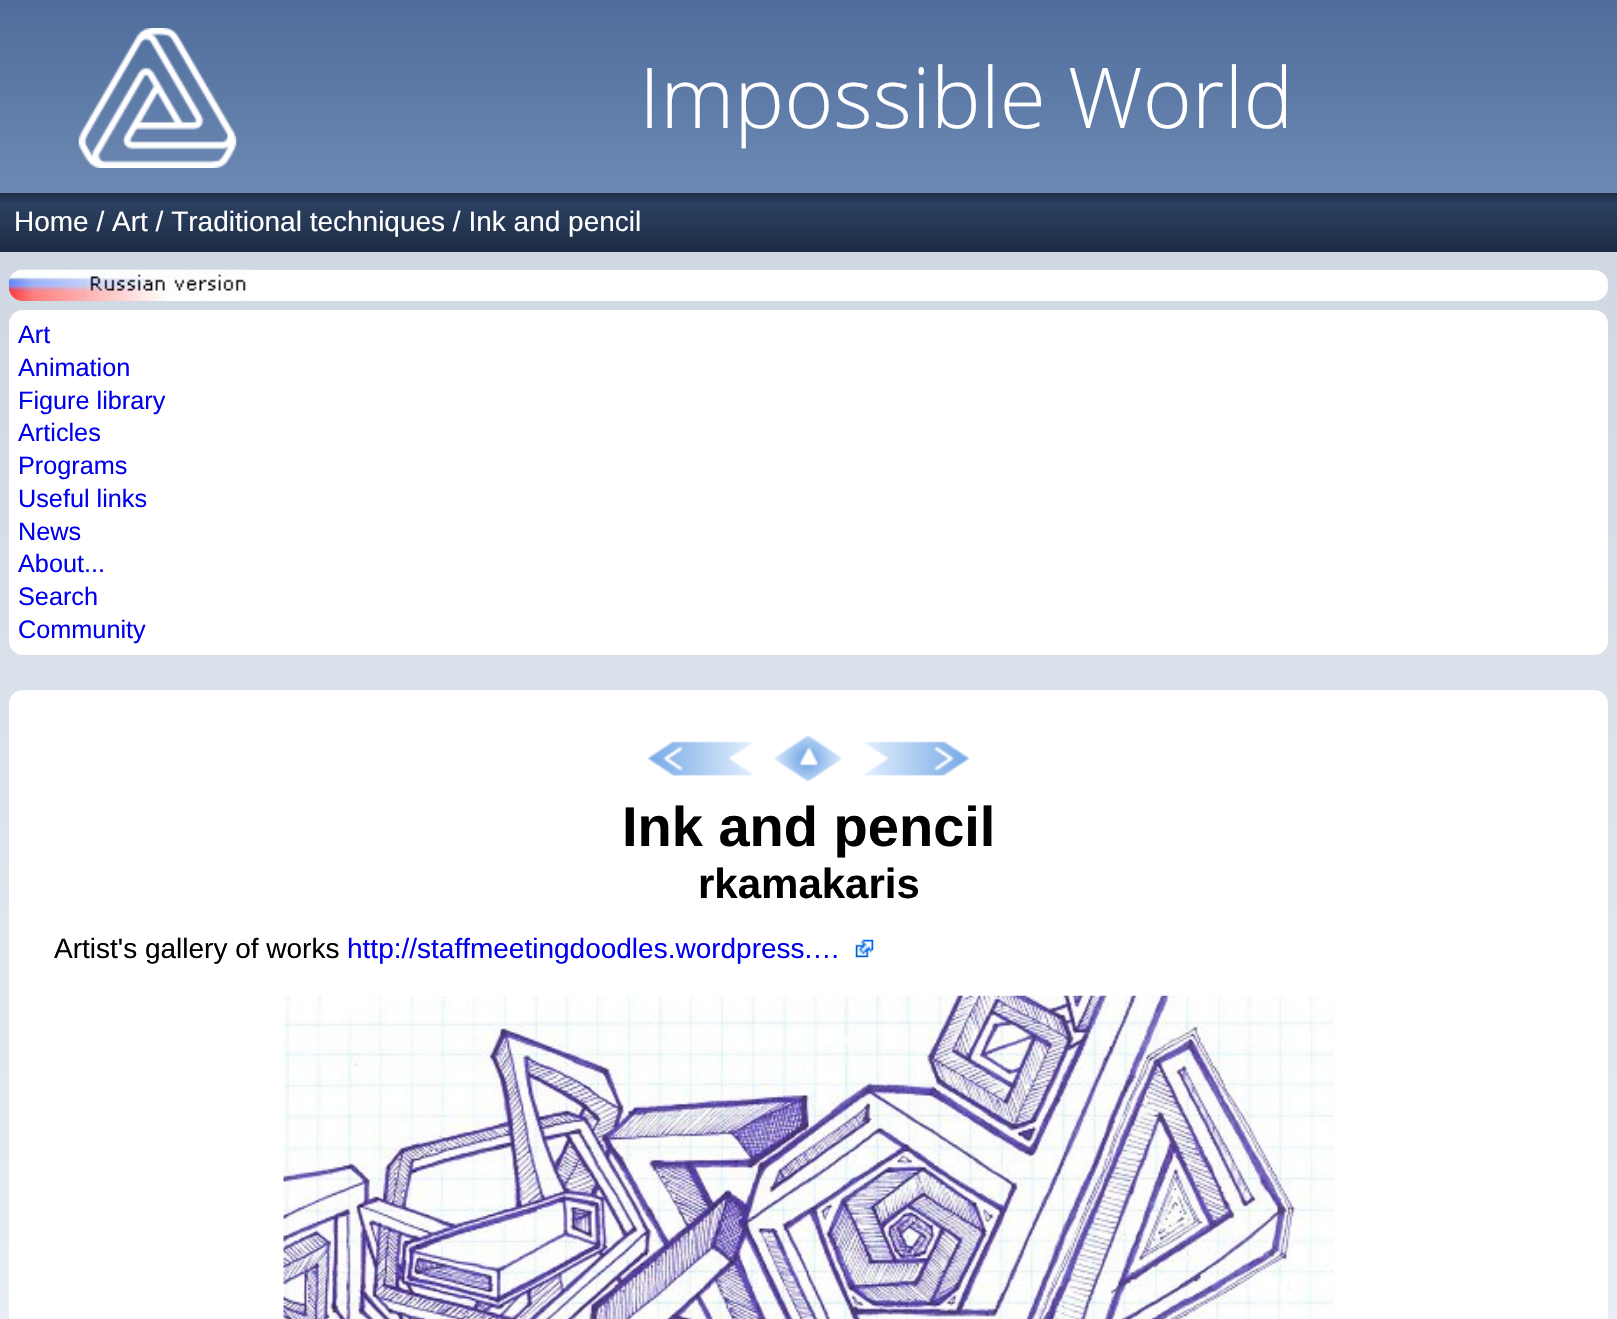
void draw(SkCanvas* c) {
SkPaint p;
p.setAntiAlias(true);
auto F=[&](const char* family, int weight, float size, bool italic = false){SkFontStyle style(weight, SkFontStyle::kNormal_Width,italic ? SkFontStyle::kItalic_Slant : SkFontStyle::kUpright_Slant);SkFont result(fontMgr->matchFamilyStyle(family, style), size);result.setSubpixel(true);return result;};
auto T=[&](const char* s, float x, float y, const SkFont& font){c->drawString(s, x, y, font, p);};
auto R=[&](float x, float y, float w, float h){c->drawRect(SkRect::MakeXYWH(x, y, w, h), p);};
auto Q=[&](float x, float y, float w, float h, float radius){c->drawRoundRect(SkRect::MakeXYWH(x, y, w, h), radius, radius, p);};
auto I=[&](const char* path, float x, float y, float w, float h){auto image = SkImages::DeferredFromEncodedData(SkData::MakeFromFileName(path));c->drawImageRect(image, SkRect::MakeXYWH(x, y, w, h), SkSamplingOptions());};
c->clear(0xffffffff);
{
const SkColor colors[] = {0xffced6e3,0xffebeff5};
const float stops[] = {.06,.5};
const SkPoint ends[] = {{808,0}, {809,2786}};
p.setShader(SkGradientShader::MakeLinear(ends, colors, stops, 2, SkTileMode::kClamp));
p.setAlpha(255);
}
R(0,252,1617,1067);
{
const SkColor colors[] = {0xff4f6d9c,0xff6d89b3};
const float stops[] = {0,1};
const SkPoint ends[] = {{809,0}, {809,193}};
p.setShader(SkGradientShader::MakeLinear(ends, colors, stops, 2, SkTileMode::kClamp));
p.setAlpha(255);
}
R(0,0,1617,193);
I("1.png",78,28,159,140);
auto f1 = F("Open Sans",300,84);
p.setShader(nullptr);
p.setColor(0xffffffff);
T("Impossible World",639,128,f1);
{
const SkColor colors[] = {0xff1d2b43,0xff2b4161,0xff1d2b43};
const float stops[] = {0,.2,1};
const SkPoint ends[] = {{809,192}, {809,252}};
p.setShader(SkGradientShader::MakeLinear(ends, colors, stops, 3, SkTileMode::kClamp));
p.setAlpha(255);
}
R(0,193,1617,59);
auto f2 = F("Liberation Sans",400,28);
p.setShader(nullptr);
p.setColor(0xffffffff);
T("Home / Art / Traditional techniques / Ink and pencil",14,231,f2);
Q(9,270,1599,31,14);
I("2.png",8,269,246,32);
Q(9,310,1599,345,14);
auto f3 = F("Liberation Sans",400,25.25);
p.setColor(0xff0000ee);
T("Art",18,343,f3);
T("Animation",18,376,f3);
T("Figure library",18,409,f3);
T("Articles",18,441,f3);
T("Programs",18,474,f3);
T("Useful links",18,507,f3);
T("News",18,540,f3);
T("About...",18,572,f3);
T("Search",18,605,f3);
T("Community",18,638,f3);
p.setColor(0xffffffff);
Q(9,690,1599,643,14);
I("3.png",647,741,106,35);
I("4.png",773,734,69,48);
I("5.png",864,741,106,35);
auto f4 = F("Liberation Sans",700,56);
p.setColor(0xff000000);
T("Ink and pencil",622,846,f4);
auto f5 = F("Liberation Sans",700,42);
T("rkamakaris",698,898,f5);
T("Artist's gallery of works",54,958,f2);
I("6.png",855,939,19,19);
p.setColor(0xff0000ee);
T("http://staffmeetingdoodles.wordpress.…",347,958,f2);
I("7.png",283,995,1051,324);
}
